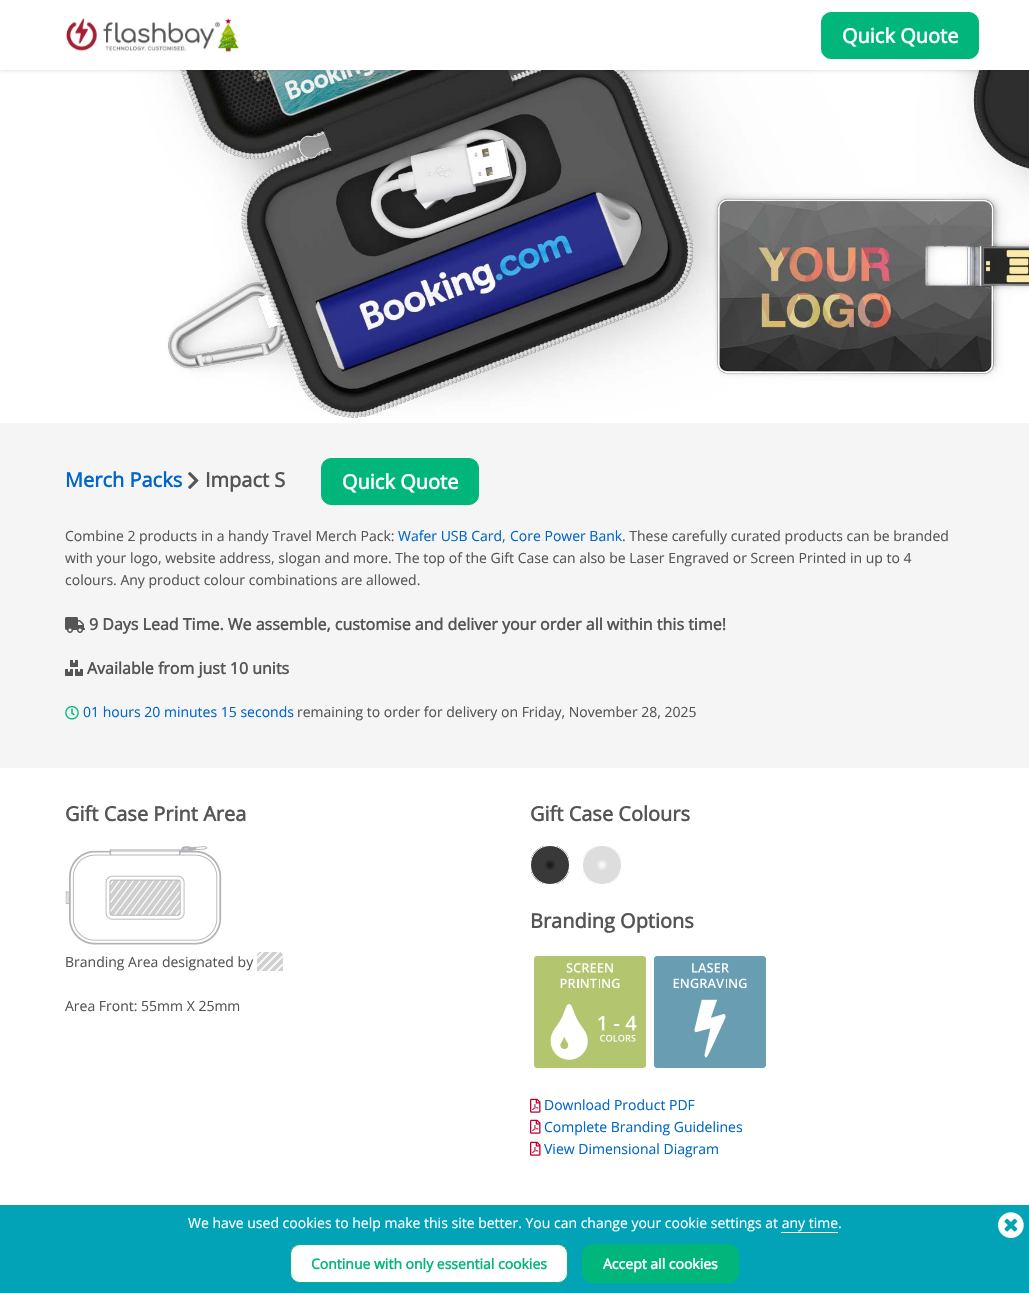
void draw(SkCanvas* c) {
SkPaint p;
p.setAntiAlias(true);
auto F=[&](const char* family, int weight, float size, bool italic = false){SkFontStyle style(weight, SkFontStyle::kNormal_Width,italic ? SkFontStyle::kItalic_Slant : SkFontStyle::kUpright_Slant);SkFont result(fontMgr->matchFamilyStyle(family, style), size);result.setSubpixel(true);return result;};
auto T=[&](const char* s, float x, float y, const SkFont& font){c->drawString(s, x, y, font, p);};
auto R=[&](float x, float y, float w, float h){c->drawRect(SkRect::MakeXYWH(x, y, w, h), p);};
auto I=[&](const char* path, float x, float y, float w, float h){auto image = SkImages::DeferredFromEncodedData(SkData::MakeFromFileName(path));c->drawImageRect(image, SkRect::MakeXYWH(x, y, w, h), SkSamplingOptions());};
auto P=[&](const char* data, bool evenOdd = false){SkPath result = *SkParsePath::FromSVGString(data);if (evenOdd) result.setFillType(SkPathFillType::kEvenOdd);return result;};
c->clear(0xffffffff);
I("2.png",0,70,1029,353);
p.setColor(0x1c000000);
p.setMaskFilter(SkMaskFilter::MakeBlur(kNormal_SkBlurStyle, 1.5));
c->drawRect(SkRect::MakeXYWH(0,1,1029,70),p);
p.setMaskFilter(nullptr);
p.setColor(0xffffffff);
R(0,0,1029,70);
I("1.png",66,18,173,34);
p.setColor(0xff00b67a);
c->drawRoundRect(SkRect::MakeXYWH(821.5,12.5,157,46),9.5,9.5,p);
p.setStroke(true);
p.setStrokeWidth(1);
c->drawRoundRect(SkRect::MakeXYWH(821.5,12.5,157,46),9.5,9.5,p);
auto f1 = F("Open Sans",700,20);
p.setStroke(false);
p.setColor(0xffffffff);
T("Quick Quote",842,43,f1);
p.setColor(0xfff5f5f5);
R(0,423,1029,345);
p.setColor(0xff0066cc);
T("Merch Packs",65,487,f1);
I("3.png",188,472,11,17);
p.setColor(0xff555555);
T("Impact S",205,487,f1);
p.setColor(0xff00b67a);
c->drawRoundRect(SkRect::MakeXYWH(321.5,458.5,157,46),9.5,9.5,p);
p.setStroke(true);
c->drawRoundRect(SkRect::MakeXYWH(321.5,458.5,157,46),9.5,9.5,p);
p.setStroke(false);
p.setColor(0xffffffff);
T("Quick Quote",342,489,f1);
auto f2 = F("Open Sans",400,14);
p.setColor(0xff555555);
T("Combine 2 products in a handy Travel Merch Pack:",65,541,f2);
p.setColor(0xff0066cc);
T("Wafer USB Card",398,541,f2);
p.setColor(0xff555555);
T(",",502,541,f2);
p.setColor(0xff0066cc);
T("Core Power Bank",510,541,f2);
p.setColor(0xff555555);
T(". These carefully curated products can be branded",622,541,f2);
T("with your logo, website address, slogan and more. The top of the Gift Case can also be Laser Engraved or Screen Printed in up to 4",65,563,f2);
T("colours. Any product colour combinations are allowed.",65,585,f2);
I("4.png",65,617,20,16);
auto f3 = F("Open Sans",700,16);
T("9 Days Lead Time. We assemble, customise and deliver your order all within this time!",89,630,f3);
I("5.png",65,660,18,16);
T("Available from just 10 units",87,674,f3);
I("6.png",65,706,14,14);
p.setColor(0xff0066cc);
T("01 hours 20 minutes 15 seconds",83,717,f2);
p.setColor(0xff555555);
T("remaining to order for delivery on Friday, November 28, 2025",297,717,f2);
T("Gift Case Print Area",65,821,f1);
I("7.png",65,846,157,99);
T("Branding Area designated by",65,967,f2);
I("8.png",257,952,26,19);
T("Area Front: 55mm X 25mm",65,1011,f2);
T("Gift Case Colours",530,821,f1);
c->save();
c->clipPath(P("M550 845c11 0 20 9 20 20c0 11-9 20-20 20c-11 0-20-9-20-20c0-11 9-20 20-20z"),true);
{
const SkColor colors[] = {0xff141414,0xff393939};
const float stops[] = {0,1};
p.setShader(SkGradientShader::MakeRadial({550,865}, 6, colors, stops, 2, SkTileMode::kClamp));
p.setAlpha(255);
}
R(531,846,38,38);
c->restore();
p.setStroke(true);
p.setShader(nullptr);
p.setColor(0xffffffff);
c->drawCircle(550,865,19.5,p);
c->save();
c->clipPath(P("M602 845c11 0 20 9 20 20c0 11-9 20-20 20c-11 0-20-9-20-20c0-11 9-20 20-20z"),true);
p.setStroke(false);
{
const SkColor colors[] = {0xffffffff,0xffdddddd};
const float stops[] = {0,1};
p.setShader(SkGradientShader::MakeRadial({602,865}, 6, colors, stops, 2, SkTileMode::kClamp));
p.setAlpha(255);
}
R(583,846,38,38);
c->restore();
p.setStroke(true);
p.setShader(nullptr);
p.setColor(0xffffffff);
c->drawCircle(602,865,19.5,p);
p.setStroke(false);
p.setColor(0xff555555);
T("Branding Options",530,928,f1);
I("9.png",534,956,112,112);
I("10.png",654,956,112,112);
I("11.png",530,1098,11,15);
p.setColor(0xff0066cc);
T("Download Product PDF",544,1110,f2);
I("11.png",530,1119,11,15);
T("Complete Branding Guidelines",544,1132,f2);
I("11.png",530,1141,11,15);
T("View Dimensional Diagram",544,1154,f2);
p.setColor(0xff02a3b7);
R(0,1205,1029,88);
p.setColor(0xffffffff);
T("We have used cookies to help make this site better. You can change your cookie settings at any time.",188,1228,f2);
R(781,1232,57,1);
I("12.png",998,1212,26,26);
c->drawRoundRect(SkRect::MakeXYWH(290.5,1244.5,277,38),9.5,9.5,p);
p.setStroke(true);
p.setColor(0xff00b67a);
c->drawRoundRect(SkRect::MakeXYWH(290.5,1244.5,277,38),9.5,9.5,p);
auto f4 = F("Open Sans",700,14);
p.setStroke(false);
T("Continue with only essential cookies",311,1269,f4);
c->drawRoundRect(SkRect::MakeXYWH(582.5,1244.5,156,38),9.5,9.5,p);
p.setStroke(true);
c->drawRoundRect(SkRect::MakeXYWH(582.5,1244.5,156,38),9.5,9.5,p);
p.setStroke(false);
p.setColor(0xffffffff);
T("Accept all cookies",603,1269,f4);
}
